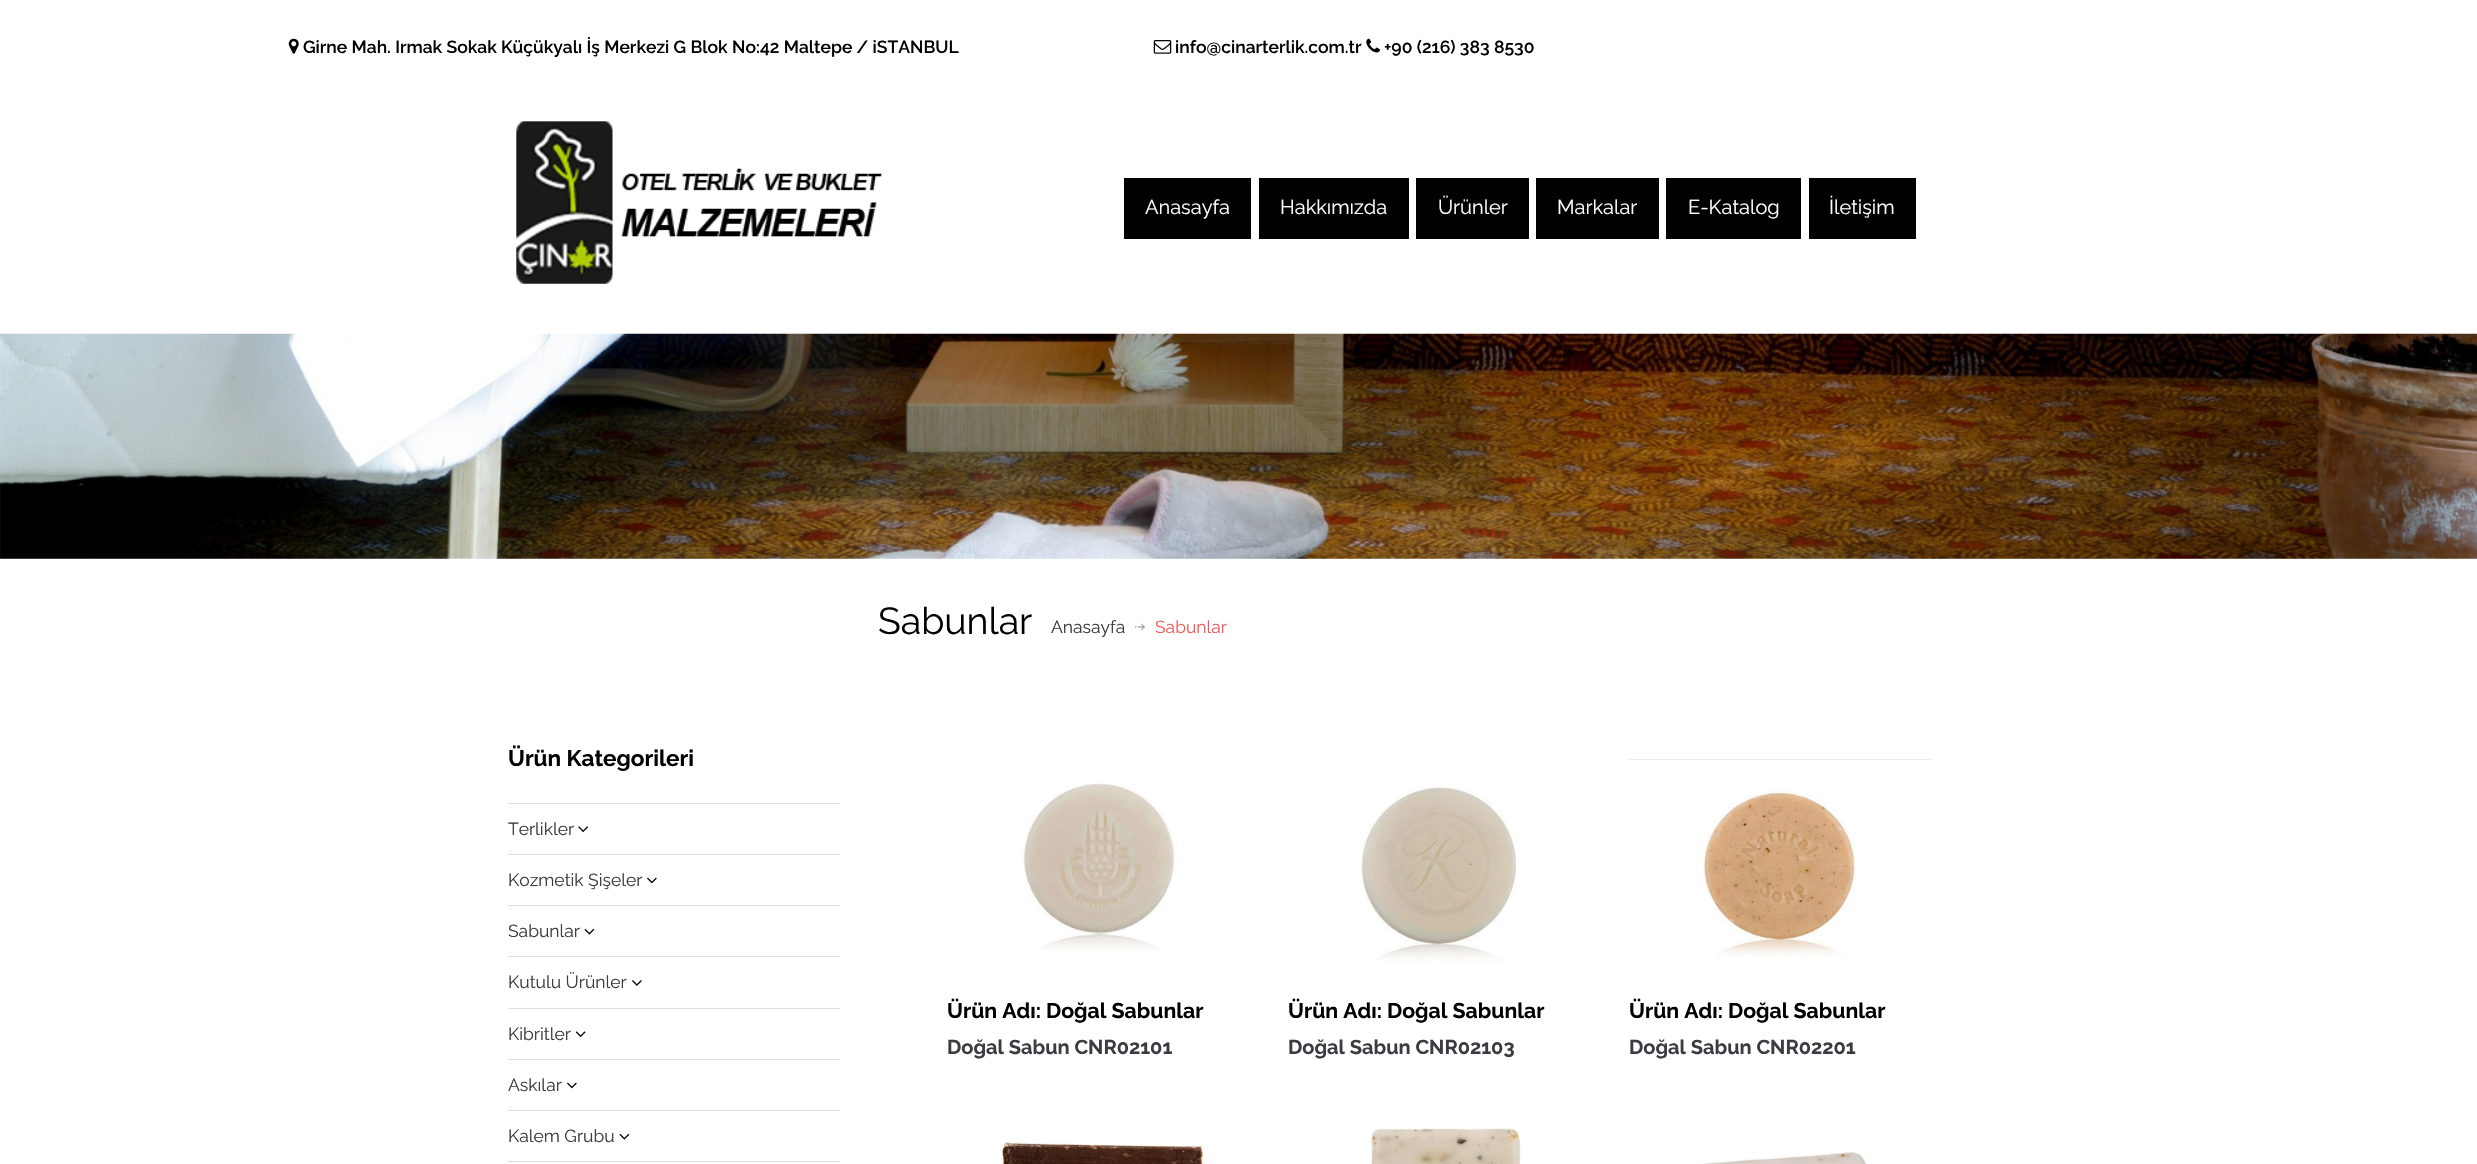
void draw(SkCanvas* c) {
SkPaint p;
p.setAntiAlias(true);
auto F=[&](const char* family, int weight, float size, bool italic = false){SkFontStyle style(weight, SkFontStyle::kNormal_Width,italic ? SkFontStyle::kItalic_Slant : SkFontStyle::kUpright_Slant);SkFont result(fontMgr->matchFamilyStyle(family, style), size);result.setSubpixel(true);return result;};
auto T=[&](const char* s, float x, float y, const SkFont& font){c->drawString(s, x, y, font, p);};
auto R=[&](float x, float y, float w, float h){c->drawRect(SkRect::MakeXYWH(x, y, w, h), p);};
auto I=[&](const char* path, float x, float y, float w, float h){auto image = SkImages::DeferredFromEncodedData(SkData::MakeFromFileName(path));c->drawImageRect(image, SkRect::MakeXYWH(x, y, w, h), SkSamplingOptions());};
c->clear(0xffffffff);
I("1.png",288,38,11,16);
auto f1 = F("Raleway",600,17.5);
p.setColor(0xff000000);
T("Girne Mah. Irmak Sokak Küçükyalı İş Merkezi G Blok No:42 Maltepe / iSTANBUL",303,53,f1);
I("2.png",1153,40,19,14);
T("info@cinarterlik.com.tr",1175,53,f1);
I("3.png",1366,38,14,15);
T("+90 (216) 383 8530",1384,53,f1);
I("4.png",516,121,367,163);
R(1124,178,127,61);
auto f2 = F("Raleway",400,20);
p.setColor(0xffffffff);
T("Anasayfa",1145,214,f2);
p.setColor(0xff000000);
R(1259,178,150,61);
p.setColor(0xffffffff);
T("Hakkımızda",1280,214,f2);
p.setColor(0xff000000);
R(1416,178,113,61);
p.setColor(0xffffffff);
T("Ürünler",1438,214,f2);
p.setColor(0xff000000);
R(1536,178,123,61);
p.setColor(0xffffffff);
T("Markalar",1557,214,f2);
p.setColor(0xff000000);
R(1666,178,135,61);
p.setColor(0xffffffff);
T("E-Katalog",1688,214,f2);
p.setColor(0xff000000);
R(1809,178,107,61);
p.setColor(0xffffffff);
T("İletişim",1829,214,f2);
I("5.png",0,333,2477,226);
auto f3 = F("Raleway",400,37.5);
p.setColor(0xff000000);
T("Sabunlar",878,634,f3);
auto f4 = F("Raleway",400,17.5);
p.setColor(0xff3a3c41);
T("Anasayfa",1051,633,f4);
I("6.png",1135,623,10,7);
p.setColor(0xfff15b5a);
T("Sabunlar",1155,633,f4);
auto f5 = F("Raleway",700,22.5);
p.setColor(0xff000000);
T("Ürün Kategorileri",508,766,f5);
p.setColor(0xffdde1e3);
R(508,803,332,1);
R(508,854,332,1);
p.setColor(0xff3a3c41);
T("Terlikler",508,835,f4);
I("7.png",578,826,10,6);
p.setColor(0xffdde1e3);
R(508,905,332,1);
p.setColor(0xff3a3c41);
T("Kozmetik Şişeler",508,886,f4);
I("8.png",647,877,10,7);
p.setColor(0xffdde1e3);
R(508,956,332,1);
p.setColor(0xff3a3c41);
T("Sabunlar",508,937,f4);
I("9.png",584,928,11,7);
p.setColor(0xffdde1e3);
R(508,1008,332,1);
p.setColor(0xff3a3c41);
T("Kutulu Ürünler",508,988,f4);
I("10.png",632,980,10,6);
p.setColor(0xffdde1e3);
R(508,1059,332,1);
p.setColor(0xff3a3c41);
T("Kibritler",508,1040,f4);
I("11.png",575,1031,11,6);
p.setColor(0xffdde1e3);
R(508,1110,332,1);
p.setColor(0xff3a3c41);
T("Askılar",508,1091,f4);
I("8.png",567,1082,10,7);
p.setColor(0xffdde1e3);
R(508,1161,332,1);
p.setColor(0xff3a3c41);
T("Kalem Grubu",508,1142,f4);
I("9.png",619,1133,11,7);
I("12.png",1022,783,155,169);
auto f6 = F("Raleway",700,21.25);
p.setColor(0xff000000);
T("Ürün Adı: Doğal Sabunlar",947,1018,f6);
auto f7 = F("Raleway",700,20);
p.setColor(0xff3a3c41);
T("Doğal Sabun CNR02101",947,1054,f7);
I("13.png",1361,786,156,176);
p.setColor(0xff000000);
T("Ürün Adı: Doğal Sabunlar",1288,1018,f6);
p.setColor(0xff3a3c41);
T("Doğal Sabun CNR02103",1288,1054,f7);
I("14.png",1629,759,304,198);
p.setColor(0xff000000);
T("Ürün Adı: Doğal Sabunlar",1629,1018,f6);
p.setColor(0xff3a3c41);
T("Doğal Sabun CNR02201",1629,1054,f7);
I("15.png",1001,1139,206,25);
I("16.png",1369,1128,152,36);
I("17.png",1702,1151,165,13);
}
